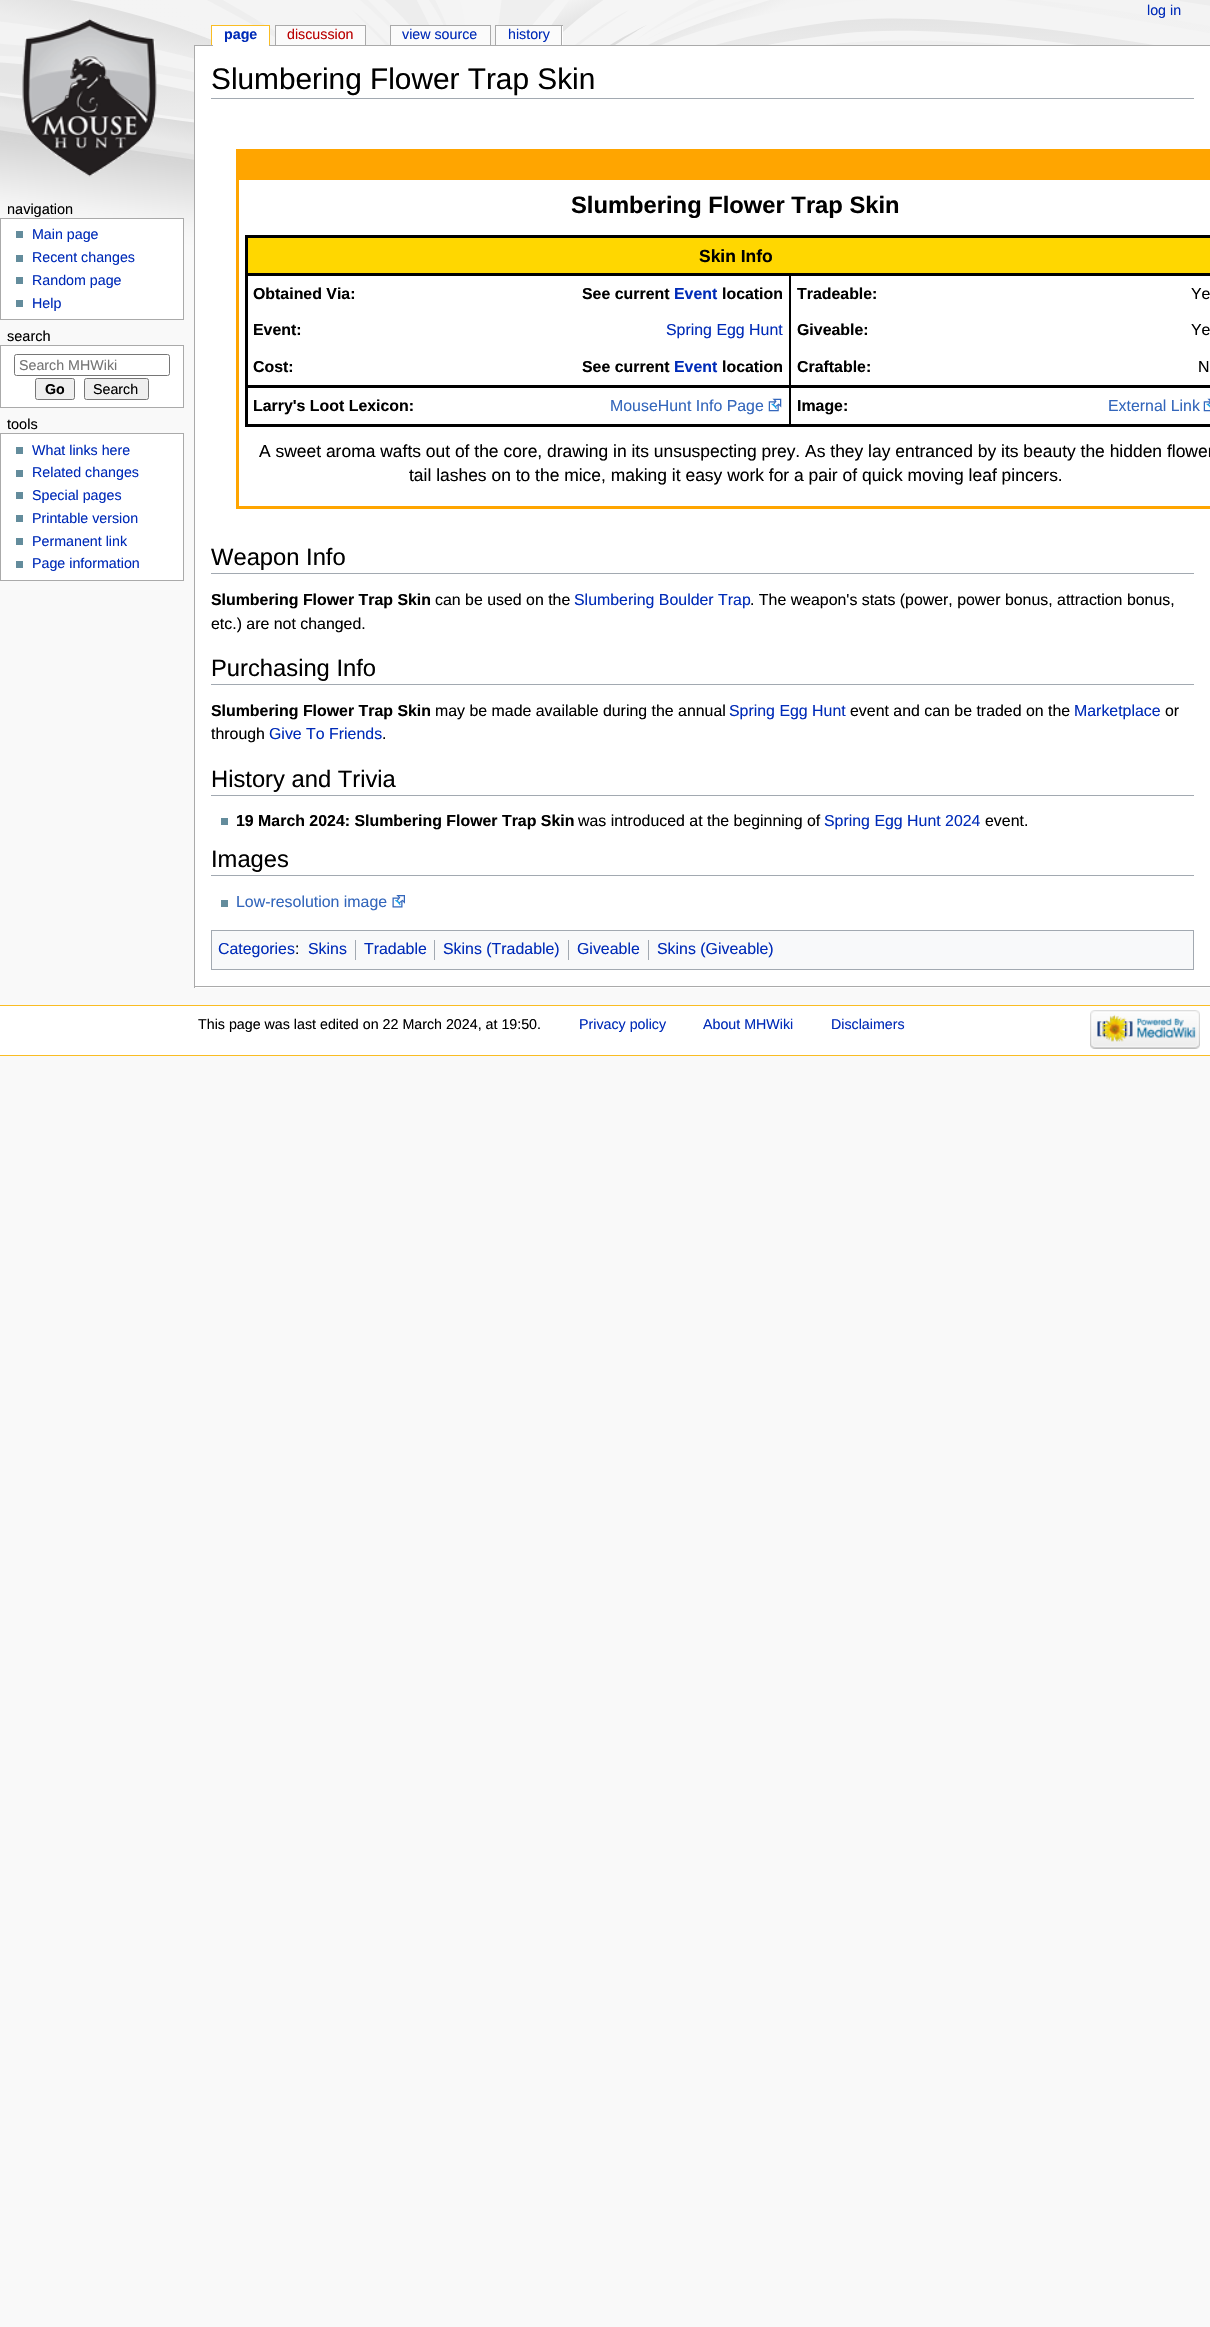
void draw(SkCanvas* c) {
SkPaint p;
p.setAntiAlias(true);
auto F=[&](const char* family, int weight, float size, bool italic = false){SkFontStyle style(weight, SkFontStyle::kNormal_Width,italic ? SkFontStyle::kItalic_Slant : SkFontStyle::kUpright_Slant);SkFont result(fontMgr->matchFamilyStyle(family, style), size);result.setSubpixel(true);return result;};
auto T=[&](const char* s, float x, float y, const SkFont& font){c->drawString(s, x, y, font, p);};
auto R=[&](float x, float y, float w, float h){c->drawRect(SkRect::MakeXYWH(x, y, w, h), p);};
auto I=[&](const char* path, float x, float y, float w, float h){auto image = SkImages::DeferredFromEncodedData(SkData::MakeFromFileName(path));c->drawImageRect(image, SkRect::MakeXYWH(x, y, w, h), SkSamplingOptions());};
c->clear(0xfff9f9f9);
I("1.png",0,0,1210,263);
auto f1 = F("Liberation Sans",400,14.25);
p.setColor(0xff002bb8);
T("log in",1147,15,f1);
I("2.png",22,18,135,159);
p.setColor(0xffaaaaaa);
R(194,45,1016,1);
p.setColor(0xffffffff);
R(213,26,56,20);
auto f2 = F("Liberation Sans",700,14.25);
p.setColor(0xff002bb8);
T("page",224,39,f2);
p.setColor(0xffffffff);
R(212,26,1,19);
p.setColor(0xfffabd23);
R(211,25,59,1);
R(269,25,1,20);
R(211,25,1,20);
p.setColor(0xfffbfbfb);
R(276,26,89,19);
p.setColor(0xffba0000);
T("discussion",287,39,f1);
p.setColor(0xffaaaaaa);
R(275,25,91,1);
R(365,25,1,20);
R(275,25,1,20);
p.setColor(0xfffbfbfb);
R(391,26,99,19);
p.setColor(0xff002bb8);
T("view source",402,39,f1);
p.setColor(0xffaaaaaa);
R(390,25,101,1);
R(490,25,1,20);
R(390,25,1,20);
p.setColor(0xfffbfbfb);
R(496,26,65,19);
p.setColor(0xff002bb8);
T("history",508,39,f1);
p.setColor(0xffffffff);
R(562,26,1,19);
p.setColor(0xffaaaaaa);
R(495,25,68,1);
R(561,25,1,20);
R(495,25,1,20);
auto f3 = F("Liberation Sans",400,14.5);
p.setColor(0xff000000);
T("navigation",7,214,f3);
p.setColor(0xffffffff);
c->drawRect(SkRect::MakeXYWH(.5,218.5,183,101),p);
p.setStroke(true);
p.setStrokeWidth(1);
p.setColor(0xffaaaaaa);
c->drawRect(SkRect::MakeXYWH(.5,218.5,183,101),p);
p.setStroke(false);
p.setColor(0xff638c9c);
R(16,231,7,7);
p.setColor(0xff002bb8);
T("Main page",32,239,f1);
p.setColor(0xff638c9c);
R(16,255,7,7);
p.setColor(0xff002bb8);
T("Recent changes",32,262,f1);
p.setColor(0xff638c9c);
R(16,277,7,7);
p.setColor(0xff002bb8);
T("Random page",32,285,f1);
p.setColor(0xff638c9c);
R(16,300,7,7);
p.setColor(0xff002bb8);
T("Help",32,308,f1);
p.setColor(0xff000000);
T("search",7,341,f3);
p.setColor(0xffffffff);
c->drawRect(SkRect::MakeXYWH(.5,345.5,183,62),p);
p.setStroke(true);
p.setColor(0xffaaaaaa);
c->drawRect(SkRect::MakeXYWH(.5,345.5,183,62),p);
p.setColor(0xff767676);
c->drawRoundRect(SkRect::MakeXYWH(14.5,354.5,155,21),2,2,p);
p.setStroke(false);
p.setColor(0xff757575);
T("Search MHWiki",19,370,f1);
p.setColor(0xffefefef);
c->drawRoundRect(SkRect::MakeXYWH(35.5,378.5,39,21),2,2,p);
p.setStroke(true);
p.setColor(0xff767676);
c->drawRoundRect(SkRect::MakeXYWH(35.5,378.5,39,21),2,2,p);
p.setStroke(false);
p.setColor(0xff000000);
T("Go",45,394,f2);
p.setColor(0xffefefef);
c->drawRoundRect(SkRect::MakeXYWH(84.5,378.5,64,21),2,2,p);
p.setStroke(true);
p.setColor(0xff767676);
c->drawRoundRect(SkRect::MakeXYWH(84.5,378.5,64,21),2,2,p);
p.setStroke(false);
p.setColor(0xff000000);
T("Search",93,394,f1);
T("tools",7,429,f3);
p.setColor(0xffffffff);
c->drawRect(SkRect::MakeXYWH(.5,433.5,183,147),p);
p.setStroke(true);
p.setColor(0xffaaaaaa);
c->drawRect(SkRect::MakeXYWH(.5,433.5,183,147),p);
p.setStroke(false);
p.setColor(0xff638c9c);
R(16,447,7,7);
p.setColor(0xff002bb8);
T("What links here",32,455,f1);
p.setColor(0xff638c9c);
R(16,470,7,7);
p.setColor(0xff002bb8);
T("Related changes",32,477,f1);
p.setColor(0xff638c9c);
R(16,492,7,7);
p.setColor(0xff002bb8);
T("Special pages",32,500,f1);
p.setColor(0xff638c9c);
R(16,515,7,7);
p.setColor(0xff002bb8);
T("Printable version",32,523,f1);
p.setColor(0xff638c9c);
R(16,538,7,7);
p.setColor(0xff002bb8);
T("Permanent link",32,546,f1);
p.setColor(0xff638c9c);
R(16,561,7,7);
p.setColor(0xff002bb8);
T("Page information",32,568,f1);
p.setColor(0xffffffff);
R(195,46,1015,942);
p.setColor(0xffaaaaaa);
R(194,986,1016,1);
R(194,45,1,943);
p.setColor(0xffa2a9b1);
R(211,98,983,1);
auto f4 = F("Liberation Sans",400,29.8);
p.setColor(0xff000000);
T("Slumbering Flower Trap Skin",211,89,f4);
p.setColor(0xffffa500);
R(239,149,971,31);
R(236,506,974,3);
R(236,149,3,360);
auto f5 = F("Liberation Sans",700,23.75);
p.setColor(0xff000000);
T("Slumbering Flower Trap Skin",571,213,f5);
p.setColor(0xffffd700);
c->drawRect(SkRect::MakeXYWH(246.5,236.5,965,38),p);
p.setStroke(true);
p.setStrokeWidth(3);
p.setColor(0xff000000);
c->drawRect(SkRect::MakeXYWH(246.5,236.5,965,38),p);
auto f6 = F("Liberation Sans",700,17.45);
p.setStroke(false);
T("Skin Info",699,262,f6);
R(245,276,3,109);
auto f7 = F("Liberation Sans",700,15.9);
T("Obtained Via:",253,299,f7);
R(789,276,2,37);
T("See current",582,299,f7);
p.setColor(0xff002bb8);
T("Event",674,299,f7);
p.setColor(0xff000000);
T("location",722,299,f7);
T("Tradeable:",797,299,f7);
auto f8 = F("Liberation Sans",400,15.9);
T("Ye",1191,299,f8);
T("Event:",253,335,f7);
R(789,313,2,36);
p.setColor(0xff002bb8);
T("Spring Egg Hunt",666,335,f8);
p.setColor(0xff000000);
T("Giveable:",797,335,f7);
T("Ye",1191,335,f8);
T("Cost:",253,372,f7);
R(789,349,2,36);
T("See current",582,372,f7);
p.setColor(0xff002bb8);
T("Event",674,372,f7);
p.setColor(0xff000000);
T("location",722,372,f7);
T("Craftable:",797,372,f7);
T("N",1198,372,f8);
R(245,385,965,3);
R(245,424,245,3);
R(245,385,3,41);
T("Larry's Loot Lexicon:",253,411,f7);
R(789,385,1,41);
R(490,424,720,3);
p.setColor(0xff3366bb);
T("MouseHunt Info Page",610,411,f8);
I("3.png",768,398,14,14);
p.setColor(0xff000000);
R(790,385,1,41);
T("Image:",797,411,f7);
p.setColor(0xff3366bb);
T("External Link",1108,411,f8);
I("4.png",1203,398,7,14);
auto f9 = F("Liberation Sans",400,17.45);
p.setColor(0xff000000);
T("A sweet aroma wafts out of the core, drawing in its unsuspecting prey. As they lay entranced by its beauty the hidden flower",259,457,f9);
T("tail lashes on to the mice, making it easy work for a pair of quick moving leaf pincers.",409,481,f9);
p.setColor(0xffa2a9b1);
R(211,573,983,1);
auto f10 = F("Liberation Sans",400,23.75);
p.setColor(0xff000000);
T("Weapon Info",211,565,f10);
T("Slumbering Flower Trap Skin",211,605,f7);
T("can be used on the",435,605,f8);
p.setColor(0xff002bb8);
T("Slumbering Boulder Trap",574,605,f8);
p.setColor(0xff000000);
T(". The weapon's stats (power, power bonus, attraction bonus,",750,605,f8);
T("etc.) are not changed.",211,629,f8);
p.setColor(0xffa2a9b1);
R(211,684,983,1);
p.setColor(0xff000000);
T("Purchasing Info",211,676,f10);
T("Slumbering Flower Trap Skin",211,716,f7);
T("may be made available during the annual",435,716,f8);
p.setColor(0xff002bb8);
T("Spring Egg Hunt",729,716,f8);
p.setColor(0xff000000);
T("event and can be traded on the",850,716,f8);
p.setColor(0xff002bb8);
T("Marketplace",1074,716,f8);
p.setColor(0xff000000);
T("or",1165,716,f8);
T("through",211,739,f8);
p.setColor(0xff002bb8);
T("Give To Friends",269,739,f8);
p.setColor(0xff000000);
T(".",382,739,f8);
p.setColor(0xffa2a9b1);
R(211,795,983,1);
p.setColor(0xff000000);
T("History and Trivia",211,787,f10);
p.setColor(0xff638c9c);
R(221,818,7,7);
p.setColor(0xff000000);
T("19 March 2024: Slumbering Flower Trap Skin",236,826,f7);
T("was introduced at the beginning of",578,826,f8);
p.setColor(0xff002bb8);
T("Spring Egg Hunt 2024",824,826,f8);
p.setColor(0xff000000);
T("event.",985,826,f8);
p.setColor(0xffa2a9b1);
R(211,875,983,1);
p.setColor(0xff000000);
T("Images",211,867,f10);
p.setColor(0xff638c9c);
R(221,900,7,7);
p.setColor(0xff3366bb);
T("Low-resolution image",236,907,f8);
I("5.png",392,895,13,13);
p.setColor(0xfff8f9fa);
c->drawRect(SkRect::MakeXYWH(211.5,930.5,982,39),p);
p.setStroke(true);
p.setStrokeWidth(1);
p.setColor(0xffa2a9b1);
c->drawRect(SkRect::MakeXYWH(211.5,930.5,982,39),p);
p.setStroke(false);
p.setColor(0xff002bb8);
T("Categories",218,954,f8);
p.setColor(0xff000000);
T(":",295,954,f8);
p.setColor(0xff002bb8);
T("Skins",308,954,f8);
p.setColor(0xffa2a9b1);
R(355,940,1,20);
p.setColor(0xff002bb8);
T("Tradable",364,954,f8);
p.setColor(0xffa2a9b1);
R(434,940,1,20);
p.setColor(0xff002bb8);
T("Skins (Tradable)",443,954,f8);
p.setColor(0xffa2a9b1);
R(568,940,1,20);
p.setColor(0xff002bb8);
T("Giveable",577,954,f8);
p.setColor(0xffa2a9b1);
R(648,940,1,20);
p.setColor(0xff002bb8);
T("Skins (Giveable)",657,954,f8);
p.setColor(0xffffffff);
R(0,1006,1210,49);
p.setColor(0xfffabd23);
R(0,1005,1210,1);
R(0,1055,1210,1);
p.setColor(0xff000000);
T("This page was last edited on 22 March 2024, at 19:50.",198,1029,f1);
p.setColor(0xff002bb8);
T("Privacy policy",579,1029,f1);
T("About MHWiki",703,1029,f1);
T("Disclaimers",831,1029,f1);
I("6.png",1090,1010,110,39);
}
